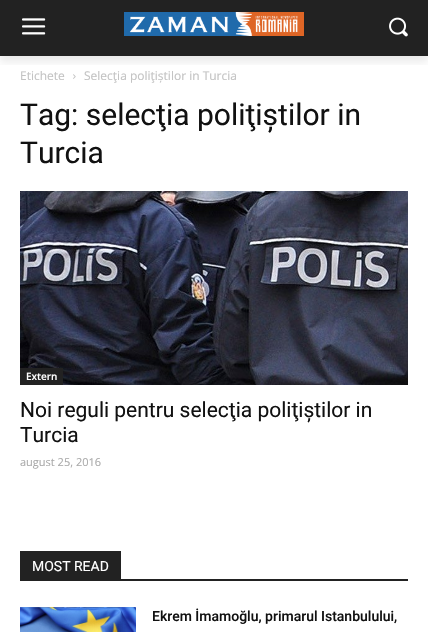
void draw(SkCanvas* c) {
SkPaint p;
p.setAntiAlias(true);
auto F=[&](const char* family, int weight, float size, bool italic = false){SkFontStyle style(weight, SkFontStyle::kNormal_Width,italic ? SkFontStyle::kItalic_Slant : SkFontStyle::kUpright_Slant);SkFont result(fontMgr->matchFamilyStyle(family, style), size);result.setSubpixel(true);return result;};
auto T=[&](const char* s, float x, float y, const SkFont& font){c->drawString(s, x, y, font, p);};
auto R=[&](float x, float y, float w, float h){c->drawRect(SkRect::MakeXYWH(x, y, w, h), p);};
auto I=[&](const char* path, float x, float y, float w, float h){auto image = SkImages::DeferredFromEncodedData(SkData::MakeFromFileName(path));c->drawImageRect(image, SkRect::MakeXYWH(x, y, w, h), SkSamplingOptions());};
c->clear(0xffffffff);
p.setColor(0xff222222);
R(0,0,428,56);
I("1.png",22,18,24,17);
I("2.png",124,12,180,24);
I("3.png",389,17,19,20);
I("4.png",73,74,3,5);
c->save();
c->clipRect(SkRect::MakeXYWH(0,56,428,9));
p.setColor(0x14000000);
p.setMaskFilter(SkMaskFilter::MakeBlur(kNormal_SkBlurStyle, 4));
c->drawRect(SkRect::MakeXYWH(0,6,428,56),p);
p.setMaskFilter(nullptr);
c->restore();
auto f1 = F("Open Sans",400,12);
p.setColor(0xffc3c3c3);
T("Etichete",20,80,f1);
T("Selecţia poliţiștilor in Turcia",84,80,f1);
auto f2 = F("Roboto",400,30);
p.setColor(0xff111111);
T("Tag: selecţia poliţiștilor in",20,125,f2);
T("Turcia",20,163,f2);
I("5.png",20,191,388,194);
p.setColor(0xff222222);
R(20,368,43,17);
auto f3 = F("Open Sans",600,10);
p.setColor(0xffffffff);
T("Extern",26,380,f3);
auto f4 = F("Roboto",400,21);
p.setColor(0xff111111);
T("Noi reguli pentru selecţia poliţiștilor in",20,417,f4);
T("Turcia",20,442,f4);
auto f5 = F("Open Sans",400,11);
p.setColor(0xffaaaaaa);
T("august 25, 2016",20,466,f5);
p.setColor(0xff222222);
R(20,579,388,2);
R(20,551,101,28);
auto f6 = F("Roboto",400,14);
p.setColor(0xffffffff);
T("MOST READ",32,571,f6);
I("6.png",20,607,116,25);
auto f7 = F("Roboto",500,14);
p.setColor(0xff111111);
T("Ekrem İmamoğlu, primarul Istanbulului,",152,621,f7);
}
